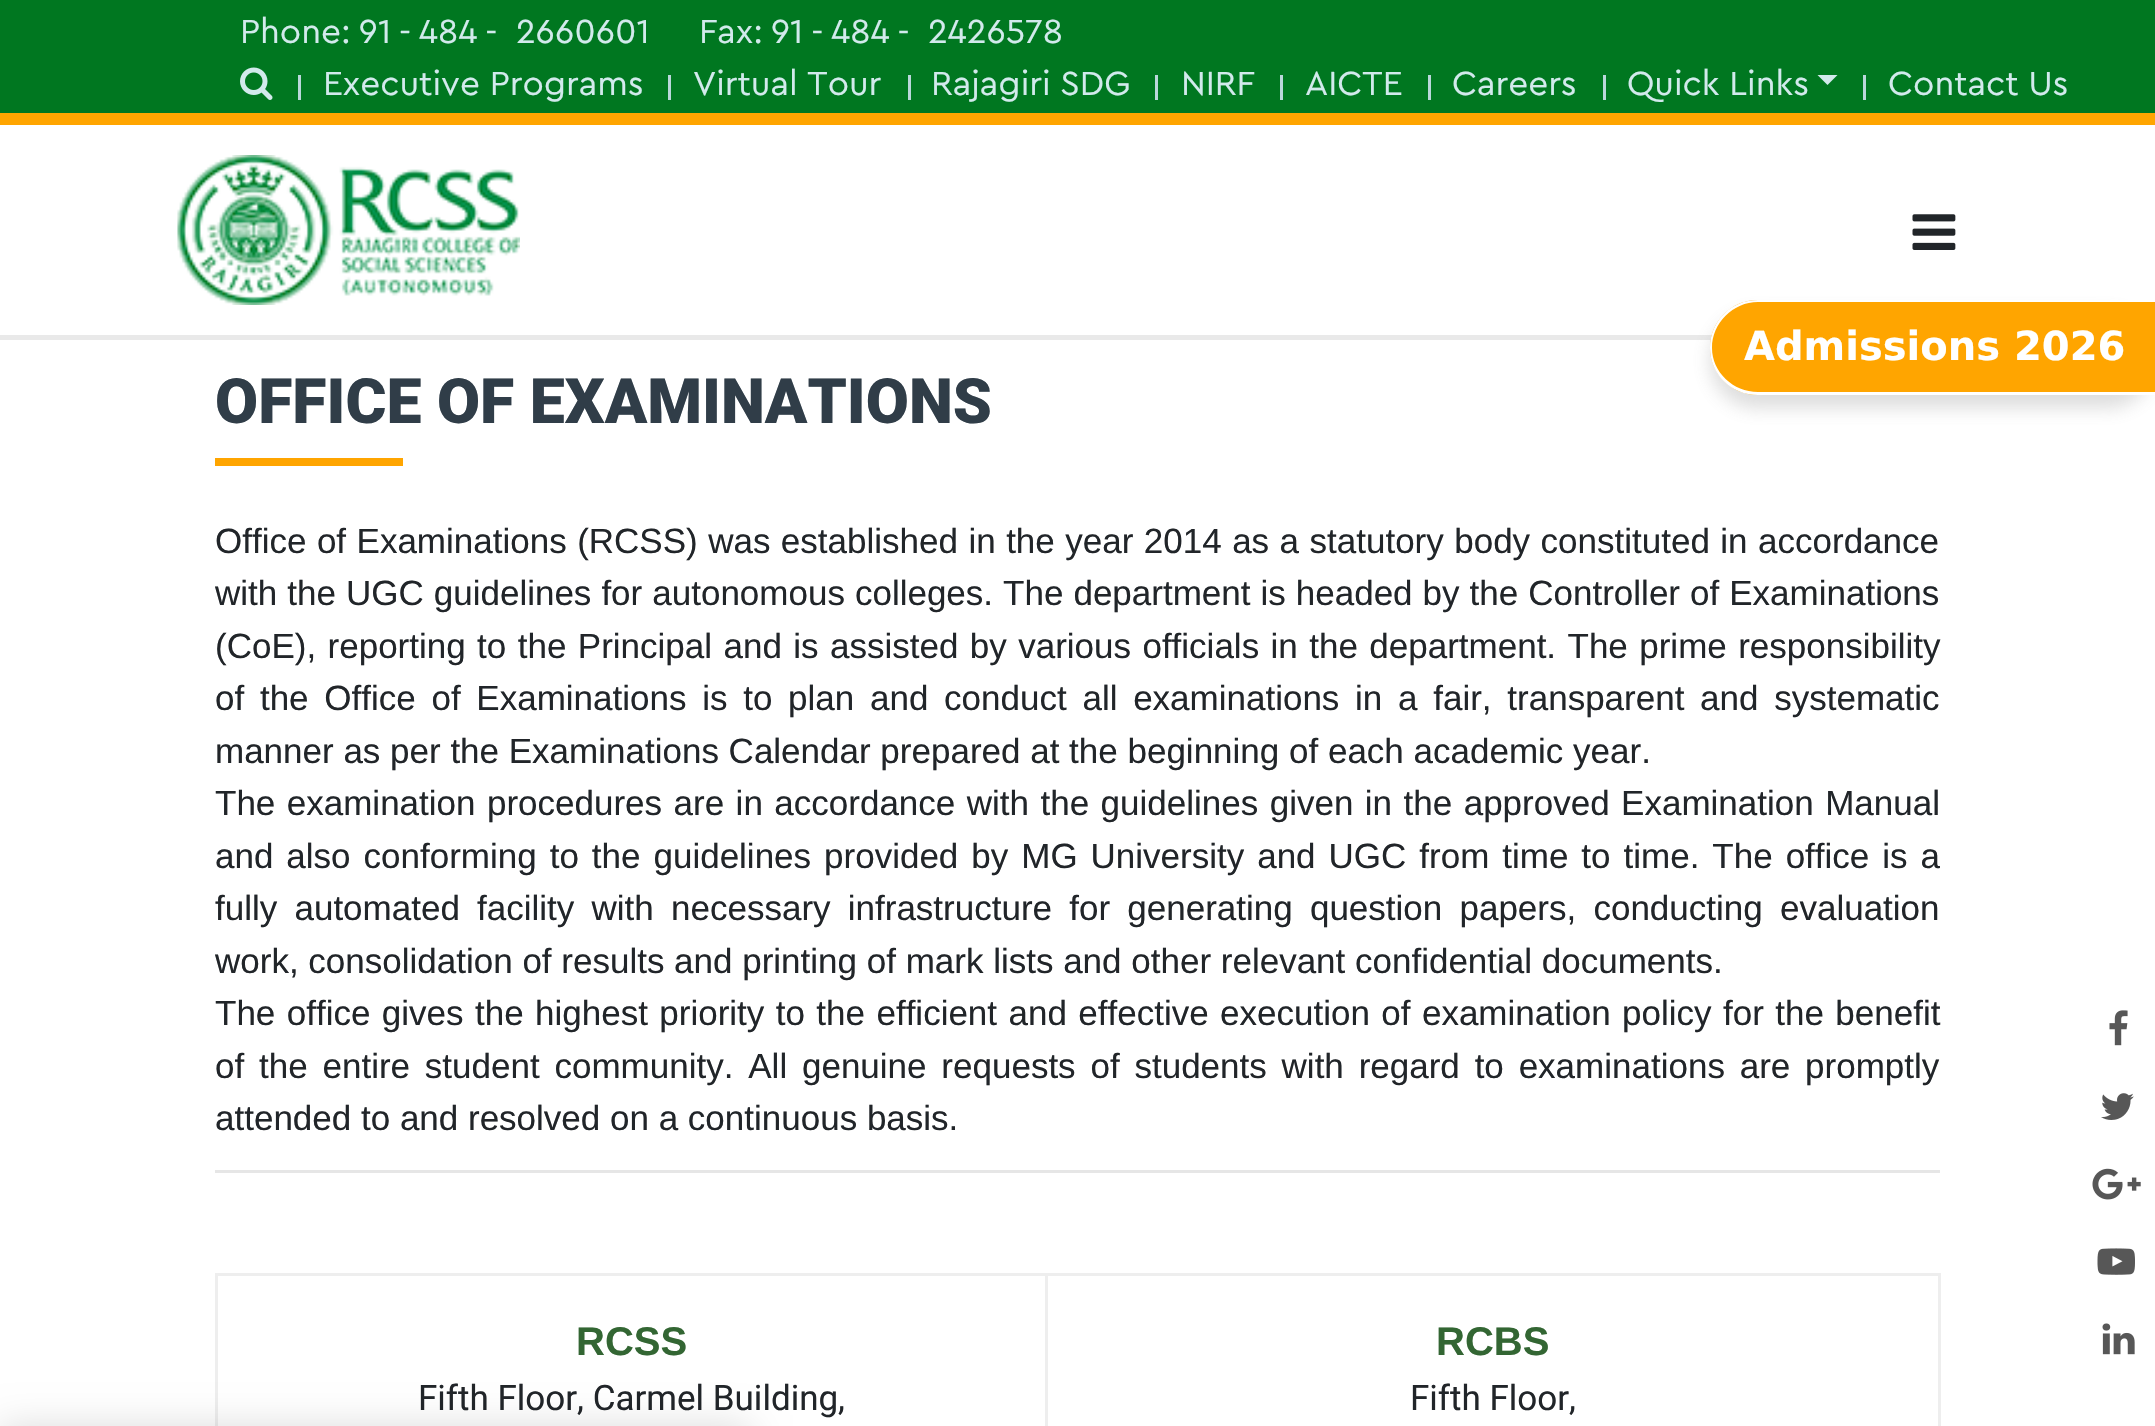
void draw(SkCanvas* c) {
SkPaint p;
p.setAntiAlias(true);
auto F=[&](const char* family, int weight, float size, bool italic = false){SkFontStyle style(weight, SkFontStyle::kNormal_Width,italic ? SkFontStyle::kItalic_Slant : SkFontStyle::kUpright_Slant);SkFont result(fontMgr->matchFamilyStyle(family, style), size);result.setSubpixel(true);return result;};
auto T=[&](const char* s, float x, float y, const SkFont& font){c->drawString(s, x, y, font, p);};
auto L=[&](const char* s, float x, float y, const SkFont& font, const SkPaint& ink, float letter, float word){std::vector<SkGlyphID> glyphs(font.countText(s, strlen(s), SkTextEncoding::kUTF8));std::vector<float> xs(glyphs.size());font.textToGlyphs(s, strlen(s), SkTextEncoding::kUTF8, glyphs);font.getXPos(glyphs, xs, x);float extra = 0;for (size_t i = 0; i < glyphs.size(); i++) {xs[i] += extra;extra += letter + word * (glyphs[i] == font.unicharToGlyph(' '));}c->drawTextBlob(SkTextBlob::MakeFromPosHGlyphs(glyphs, xs, y, font), 0, 0, ink);};
auto R=[&](float x, float y, float w, float h){c->drawRect(SkRect::MakeXYWH(x, y, w, h), p);};
auto I=[&](const char* path, float x, float y, float w, float h){auto image = SkImages::DeferredFromEncodedData(SkData::MakeFromFileName(path));c->drawImageRect(image, SkRect::MakeXYWH(x, y, w, h), SkSamplingOptions());};
auto P=[&](const char* data, bool evenOdd = false){SkPath result = *SkParsePath::FromSVGString(data);if (evenOdd) result.setFillType(SkPathFillType::kEvenOdd);return result;};
c->clear(0xffffffff);
p.setColor(0xff007720);
R(0,0,2155,113);
auto f1 = F("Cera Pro",400,35);
p.setColor(0xffd2eaec);
L("Phone: 91 - 484 -",240,43,f1,p,0,-2);
L("2660601",516,43,f1,p,0,-2);
L("Fax: 91 - 484 -",699,43,f1,p,0,-2);
L("2426578",928,43,f1,p,0,-2);
I("1.png",240,67,33,33);
p.setColor(0xffbad7da);
R(298,75,3,25);
p.setColor(0xffd2eaec);
T("Executive Programs",323,95,f1);
p.setColor(0xffbad7da);
R(668,75,3,25);
p.setColor(0xffd2eaec);
T("Virtual Tour",693,95,f1);
p.setColor(0xffbad7da);
R(908,75,3,25);
p.setColor(0xffd2eaec);
T("Rajagiri SDG",931,95,f1);
p.setColor(0xffbad7da);
R(1155,75,3,25);
p.setColor(0xffd2eaec);
T("NIRF",1181,95,f1);
p.setColor(0xffbad7da);
R(1280,75,3,25);
p.setColor(0xffd2eaec);
T("AICTE",1305,95,f1);
p.setColor(0xffbad7da);
R(1428,75,3,25);
p.setColor(0xffd2eaec);
T("Careers",1452,95,f1);
p.setColor(0xffbad7da);
R(1603,75,3,25);
p.setColor(0xffd2eaec);
T("Quick Links",1627,95,f1);
c->drawPath(P("M1817.5 75h20l-10 10z"),p);
p.setColor(0xffbad7da);
R(1863,75,3,25);
p.setColor(0xffd2eaec);
T("Contact Us",1888,95,f1);
p.setColor(0xffffa500);
R(0,113,2155,12);
p.setColor(0xffe9e9e9);
R(0,335,1712,5);
I("2.png",177,155,343,150);
I("3.png",1912,214,44,36);
p.setColor(0x3d717070);
p.setMaskFilter(SkMaskFilter::MakeBlur(kNormal_SkBlurStyle, 9));
c->drawRoundRect(SkRect::MakeXYWH(1710,313,445,95),47.5,47.5,p);
p.setMaskFilter(nullptr);
p.setColor(0xffffa500);
c->drawPath(P("M1757.5 300h397.5v95h-397.5c-26 0-47.5-21.5-47.5-47.5c0-26 21.5-47.5 47.5-47.5z"),p);
p.setColor(0xffffffff);
c->drawPath(P("M1758 300h397v95h-397c-27 0-48-21-48-47c0-27 21-48 48-48zm0 2h397v90h-397c-25 0-46-20-46-44c0-25 21-46 46-46z",true),p);
auto f2 = F("DejaVu Sans",700,40);
T("Admissions 2026",1744,360,f2);
auto f3 = F("Roboto",900,62.5);
p.setColor(0xff303d48);
T("OFFICE OF EXAMINATIONS",215,423,f3);
p.setColor(0xffffa500);
R(215,458,188,8);
auto f4 = F("Liberation Sans",400,35);
p.setColor(0xff212529);
L("Office of Examinations (RCSS) was established in the year 2014 as a statutory body constituted in accordance",215,553,f4,p,0,.75);
L("with the UGC guidelines for autonomous colleges. The department is headed by the Controller of Examinations",215,605,f4,p,0,.3);
L("(CoE), reporting to the Principal and is assisted by various officials in the department. The prime responsibility",215,658,f4,p,0,1.7);
L("of the Office of Examinations is to plan and conduct all examinations in a fair, transparent and systematic",215,710,f4,p,0,6);
T("manner as per the Examinations Calendar prepared at the beginning of each academic year.",215,763,f4);
L("The examination procedures are in accordance with the guidelines given in the approved Examination Manual",215,815,f4,p,0,1.75);
L("and also conforming to the guidelines provided by MG University and UGC from time to time. The office is a",215,868,f4,p,0,3.25);
L("fully automated facility with necessary infrastructure for generating question papers, conducting evaluation",215,920,f4,p,0,7.5);
T("work, consolidation of results and printing of mark lists and other relevant confidential documents.",215,973,f4);
L("The office gives the highest priority to the efficient and effective execution of examination policy for the benefit",215,1025,f4,p,0,1.7);
L("of the entire student community. All genuine requests of students with regard to examinations are promptly",215,1078,f4,p,0,5.1);
T("attended to and resolved on a continuous basis.",215,1130,f4);
p.setColor(0xffe6e6e6);
R(215,1170,1725,3);
p.setColor(0xffeeeeee);
R(1045,1273,895,3);
R(1045,1273,3,153);
R(215,1273,833,3);
R(215,1273,3,153);
auto f5 = F("Liberation Sans",700,40);
p.setColor(0xff336633);
T("RCSS",576,1355,f5);
auto f6 = F("Roboto",400,35);
p.setColor(0xff212529);
T("Fifth Floor, Carmel Building,",418,1410,f6);
p.setColor(0xffeeeeee);
R(1938,1273,3,153);
p.setColor(0xff336633);
T("RCBS",1436,1355,f5);
p.setColor(0xff212529);
T("Fifth Floor,",1410,1410,f6);
I("4.png",2109,1010,19,36);
I("5.png",2101,1093,33,27);
I("6.png",2092,1168,49,32);
I("7.png",2097,1248,38,27);
I("8.png",2102,1323,33,32);
p.setColor(0x26000000);
p.setMaskFilter(SkMaskFilter::MakeBlur(kNormal_SkBlurStyle, 19));
c->drawRect(SkRect::MakeXYWH(0,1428,750,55),p);
p.setMaskFilter(nullptr);
}
